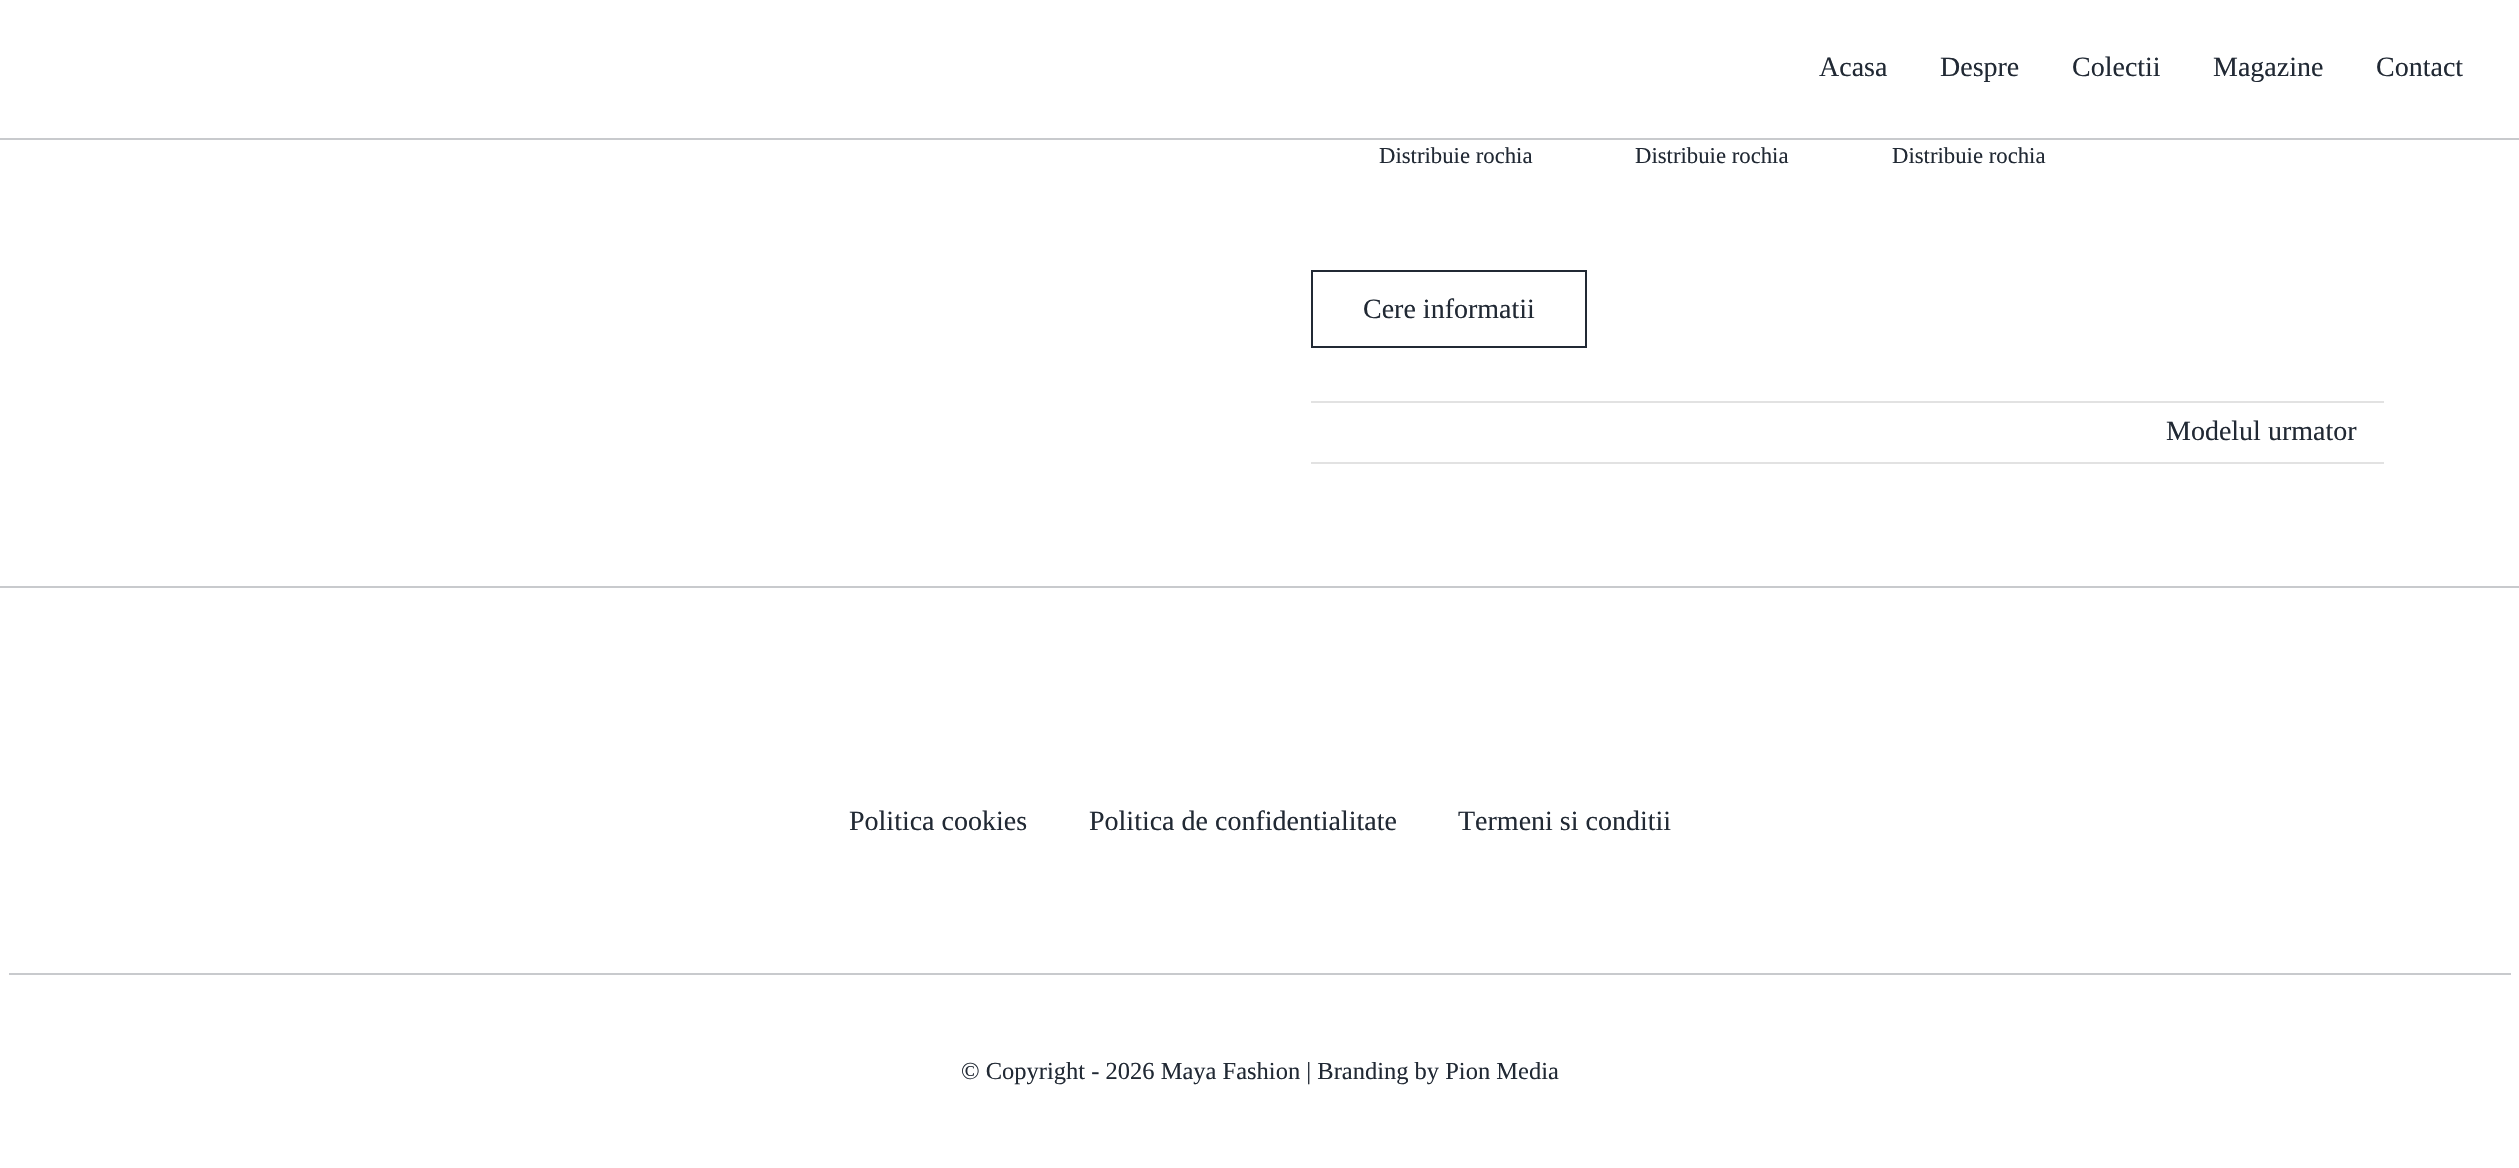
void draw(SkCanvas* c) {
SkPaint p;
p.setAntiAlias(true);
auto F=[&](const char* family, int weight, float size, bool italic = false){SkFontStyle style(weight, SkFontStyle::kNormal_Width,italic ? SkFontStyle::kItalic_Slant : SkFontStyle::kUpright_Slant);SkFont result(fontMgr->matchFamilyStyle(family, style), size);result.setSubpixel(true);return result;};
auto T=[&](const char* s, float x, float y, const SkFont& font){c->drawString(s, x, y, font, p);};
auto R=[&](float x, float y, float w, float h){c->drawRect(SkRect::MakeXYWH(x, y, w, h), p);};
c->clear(0xffffffff);
p.setColor(0xffc8cacd);
R(0,138,2519,2);
auto f1 = F("Liberation Serif",400,28);
p.setColor(0xff212934);
T("Acasa",1819,76,f1);
T("Despre",1940,76,f1);
T("Colectii",2072,76,f1);
T("Magazine",2213,76,f1);
T("Contact",2376,76,f1);
auto f2 = F("Liberation Serif",400,22.75);
T("Distribuie rochia",1379,163,f2);
T("Distribuie rochia",1635,163,f2);
T("Distribuie rochia",1892,163,f2);
p.setStroke(true);
p.setStrokeWidth(2);
c->drawRect(SkRect::MakeXYWH(1312,271,274,76),p);
p.setStroke(false);
T("Cere informatii",1363,318,f1);
p.setColor(0xffe2e2e2);
R(1311,401,1073,2);
R(1311,462,1073,2);
p.setColor(0xff212934);
T("Modelul urmator",2166,440,f1);
p.setColor(0xffc8cacd);
R(0,586,2519,2);
p.setColor(0xff212934);
T("Politica cookies",849,830,f1);
T("Politica de confidentialitate",1089,830,f1);
T("Termeni si conditii",1458,830,f1);
p.setColor(0xffc8cacd);
R(9,973,2502,2);
auto f3 = F("Liberation Serif",400,24.5);
p.setColor(0xff212934);
T("© Copyright - 2026 Maya Fashion | Branding by Pion Media",961,1079,f3);
}
